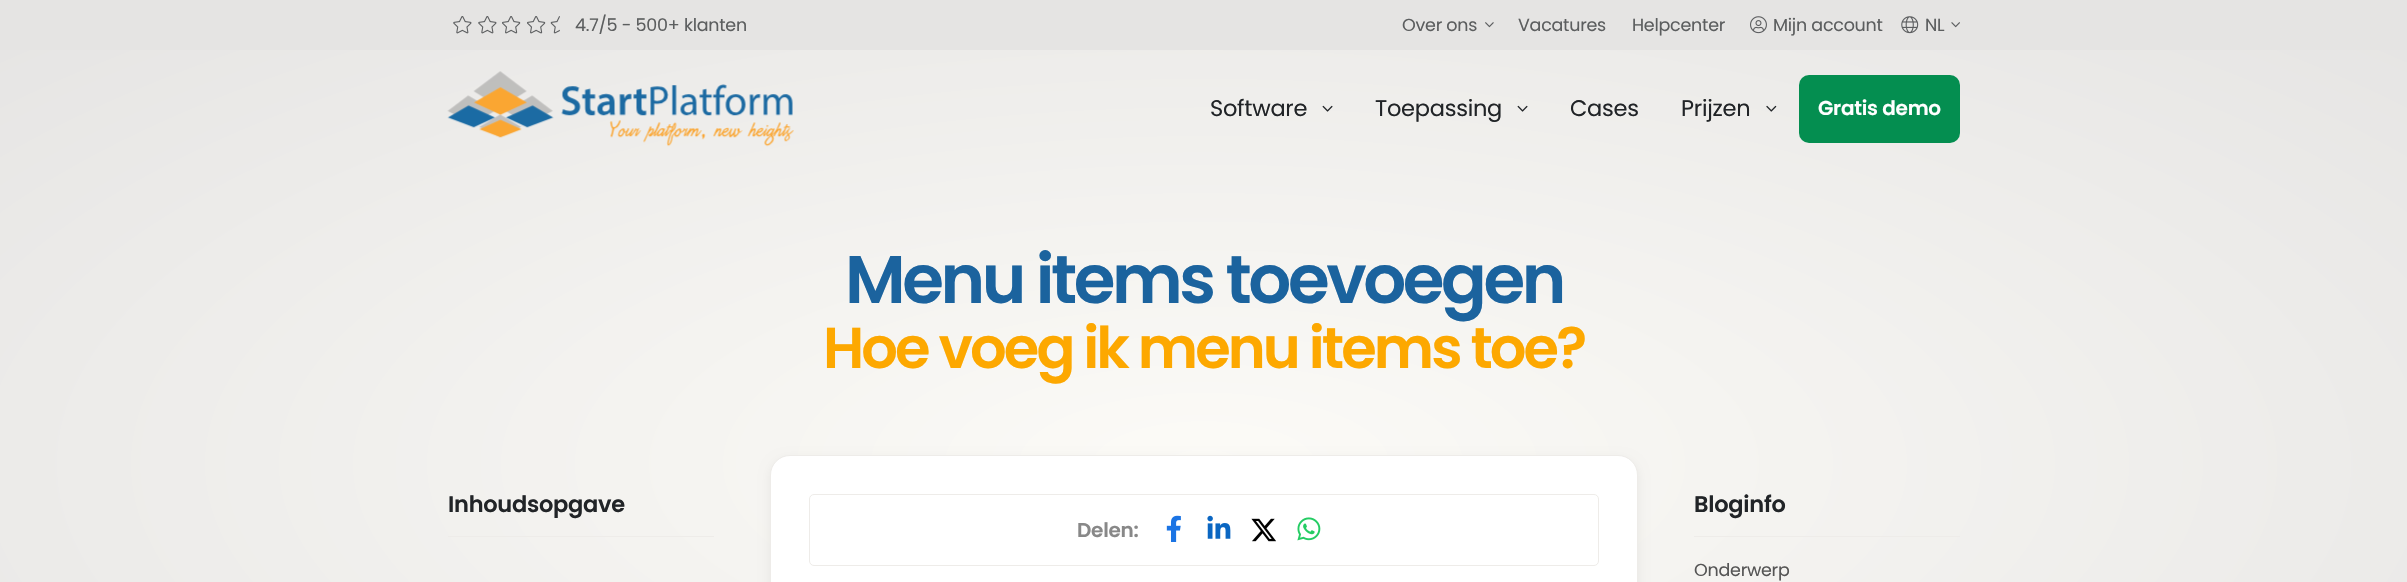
void draw(SkCanvas* c) {
SkPaint p;
p.setAntiAlias(true);
auto F=[&](const char* family, int weight, float size, bool italic = false){SkFontStyle style(weight, SkFontStyle::kNormal_Width,italic ? SkFontStyle::kItalic_Slant : SkFontStyle::kUpright_Slant);SkFont result(fontMgr->matchFamilyStyle(family, style), size);result.setSubpixel(true);return result;};
auto L=[&](const char* s, float x, float y, const SkFont& font, const SkPaint& ink, float letter, float word){std::vector<SkGlyphID> glyphs(font.countText(s, strlen(s), SkTextEncoding::kUTF8));std::vector<float> xs(glyphs.size());font.textToGlyphs(s, strlen(s), SkTextEncoding::kUTF8, glyphs);font.getXPos(glyphs, xs, x);float extra = 0;for (size_t i = 0; i < glyphs.size(); i++) {xs[i] += extra;extra += letter + word * (glyphs[i] == font.unicharToGlyph(' '));}c->drawTextBlob(SkTextBlob::MakeFromPosHGlyphs(glyphs, xs, y, font), 0, 0, ink);};
auto R=[&](float x, float y, float w, float h){c->drawRect(SkRect::MakeXYWH(x, y, w, h), p);};
auto Q=[&](float x, float y, float w, float h, float radius){c->drawRoundRect(SkRect::MakeXYWH(x, y, w, h), radius, radius, p);};
auto I=[&](const char* path, float x, float y, float w, float h){auto image = SkImages::DeferredFromEncodedData(SkData::MakeFromFileName(path));c->drawImageRect(image, SkRect::MakeXYWH(x, y, w, h), SkSamplingOptions());};
c->clear(0xffffffff);
p.setColor(0xffe5e4e3);
R(0,0,2407,50);
I("1.png",453,16,19,18);
I("1.png",478,16,19,18);
I("2.png",502,16,19,18);
I("2.png",527,16,19,18);
I("3.png",550,16,10,18);
auto f1 = F("Poppins",400,17.5);
p.setColor(0xff5c5e5f);
L("4.7/5 - 500+ klanten",575,31,f1,p,-.25,0);
L("Over ons",1402,31,f1,p,-.25,0);
I("4.png",1485,22,9,6);
L("Vacatures",1518,31,f1,p,-.25,0);
L("Helpcenter",1632,31,f1,p,-.25,0);
I("5.png",1750,16,17,18);
L("Mijn account",1773,31,f1,p,-.25,0);
I("6.png",1901,16,18,18);
L("NL",1925,31,f1,p,-.25,0);
I("7.png",1951,22,9,6);
{
const SkColor colors[] = {0xfffcfbf7,0xffe5e4e3};
const float stops[] = {0,1};
SkMatrix m = SkMatrix::Translate(1204,464).preScale(1702,656);
p.setShader(SkGradientShader::MakeRadial({0, 0}, 1, colors, stops, 2, SkTileMode::kClamp, 0, &m));
p.setAlpha(255);
}
R(0,50,2407,532);
I("8.png",447,71,347,76);
auto f2 = F("Poppins",400,22.5);
p.setShader(nullptr);
p.setColor(0xff212427);
L("Software",1210,116,f2,p,-.25,0);
I("9.png",1322,105,11,7);
L("Toepassing",1375,116,f2,p,-.25,0);
I("10.png",1517,105,11,7);
L("Cases",1570,116,f2,p,-.25,0);
L("Prijzen",1681,116,f2,p,-.25,0);
I("11.png",1766,105,11,7);
p.setColor(0xff048e50);
Q(1799,75,161,68,10);
auto f3 = F("Poppins",600,20);
p.setColor(0xffffffff);
L("Gratis demo",1818,115,f3,p,-.25,0);
auto f4 = F("Poppins",600,67.5);
p.setColor(0xff1b639e);
L("Menu items toevoegen",845,303,f4,p,-3.4,0);
auto f5 = F("Poppins",600,57.5);
p.setColor(0xfffda800);
L("Hoe voeg ik menu items toe?",823,368,f5,p,-2.9,0);
p.setColor(0xffeeece9);
R(448,536,266,1);
auto f6 = F("Poppins",600,22.5);
p.setColor(0xff212427);
L("Inhoudsopgave",448,512,f6,p,-.25,0);
p.setColor(0xffeeece9);
R(1694,536,266,1);
p.setColor(0xff212427);
L("Bloginfo",1694,512,f6,p,-.25,0);
p.setColor(0xff555555);
L("Onderwerp",1694,576,f1,p,-.25,0);
p.setColor(0x0f000000);
p.setMaskFilter(SkMaskFilter::MakeBlur(kNormal_SkBlurStyle, 5.5));
c->drawRoundRect(SkRect::MakeXYWH(770,459,868,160),20,20,p);
p.setMaskFilter(nullptr);
p.setColor(0xffffffff);
c->drawRoundRect(SkRect::MakeXYWH(770.5,455.5,867,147),19.5,19.5,p);
p.setStroke(true);
p.setStrokeWidth(1);
p.setColor(0xffeeece9);
c->drawRoundRect(SkRect::MakeXYWH(770.5,455.5,867,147),19.5,19.5,p);
c->drawRoundRect(SkRect::MakeXYWH(809.5,494.5,789,71),4.5,4.5,p);
p.setStroke(false);
p.setColor(0xff888888);
L("Delen:",1077,537,f3,p,-.25,0);
I("12.png",1166,515,15,27);
I("13.png",1207,515,24,24);
I("14.png",1251,518,25,24);
I("15.png",1297,517,24,24);
}
